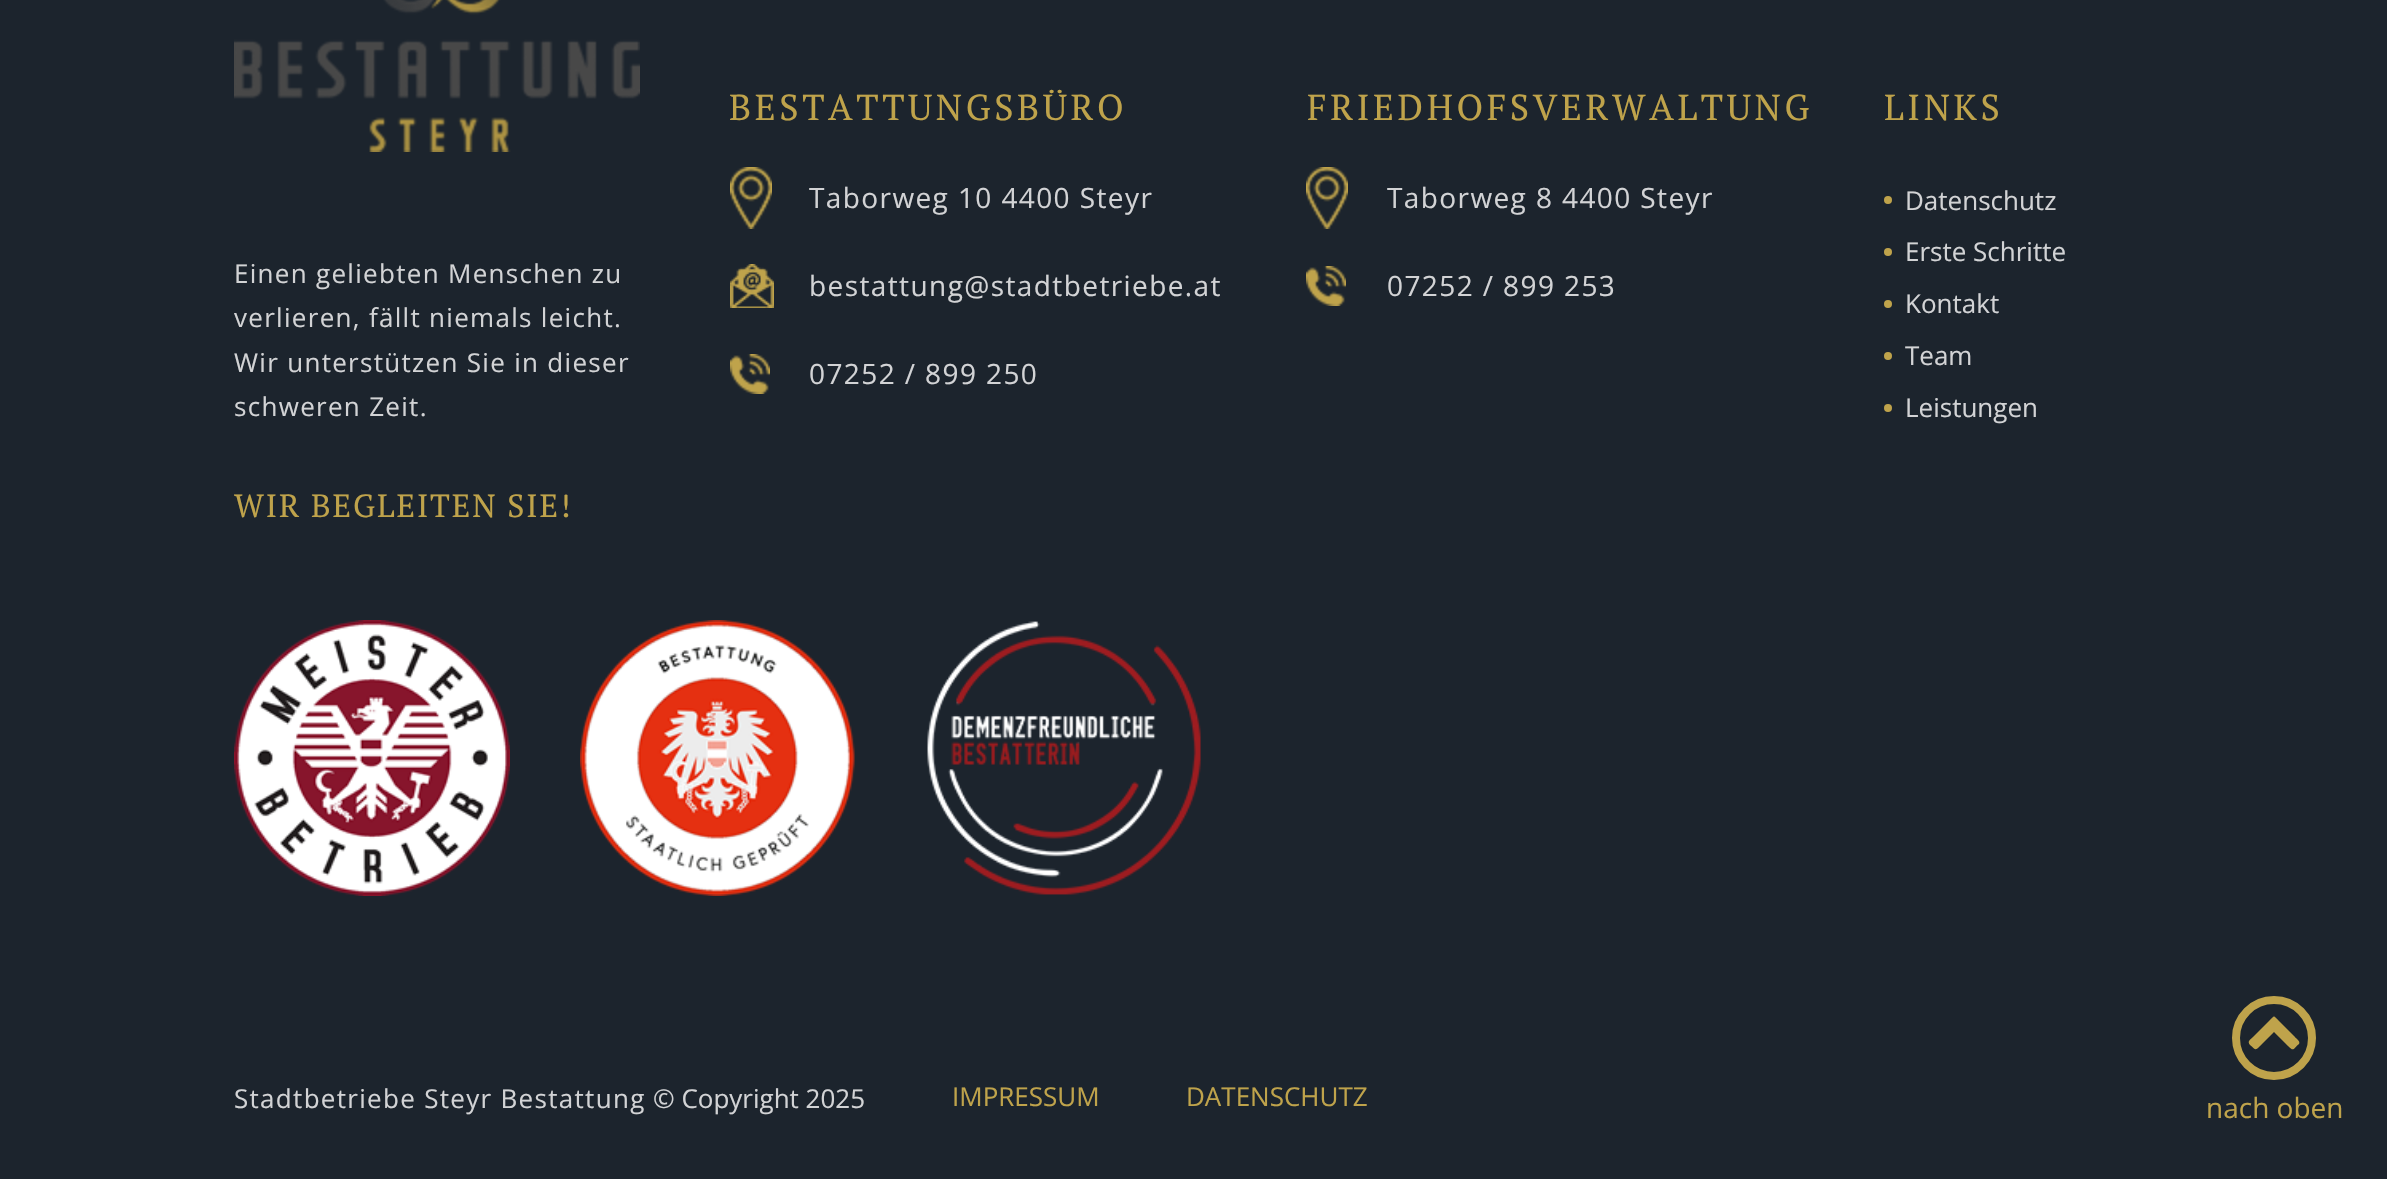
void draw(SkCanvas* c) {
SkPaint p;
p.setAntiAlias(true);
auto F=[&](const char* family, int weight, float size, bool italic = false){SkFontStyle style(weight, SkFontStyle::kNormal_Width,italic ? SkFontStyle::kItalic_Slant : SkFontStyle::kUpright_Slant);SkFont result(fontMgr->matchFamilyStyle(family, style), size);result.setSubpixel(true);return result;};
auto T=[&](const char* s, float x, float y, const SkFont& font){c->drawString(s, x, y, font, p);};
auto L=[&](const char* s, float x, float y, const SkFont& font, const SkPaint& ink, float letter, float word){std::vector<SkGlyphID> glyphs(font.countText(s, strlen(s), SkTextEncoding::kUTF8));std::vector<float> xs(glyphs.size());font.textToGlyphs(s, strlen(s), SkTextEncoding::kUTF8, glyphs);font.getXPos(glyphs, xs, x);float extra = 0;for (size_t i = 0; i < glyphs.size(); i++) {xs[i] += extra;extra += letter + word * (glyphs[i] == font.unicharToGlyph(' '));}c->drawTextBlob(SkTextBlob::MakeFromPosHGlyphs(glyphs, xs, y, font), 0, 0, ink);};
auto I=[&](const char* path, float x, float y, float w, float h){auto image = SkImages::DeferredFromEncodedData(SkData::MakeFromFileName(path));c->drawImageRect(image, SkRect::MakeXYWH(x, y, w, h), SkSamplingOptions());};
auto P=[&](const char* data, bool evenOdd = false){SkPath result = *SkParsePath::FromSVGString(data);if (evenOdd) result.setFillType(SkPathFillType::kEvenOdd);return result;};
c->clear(0xff1c242d);
I("1.png",234,0,406,152);
auto f1 = F("Open Sans",400,26);
p.setColor(0xffd2d3d5);
L("Einen geliebten Menschen zu",234,283,f1,p,1.3,0);
L("verlieren, fällt niemals leicht.",234,327,f1,p,1.3,0);
L("Wir unterstützen Sie in dieser",234,372,f1,p,1.3,0);
L("schweren Zeit.",234,416,f1,p,1.3,0);
auto f2 = F("PT Serif",400,32);
p.setColor(0xffbfa34b);
L("WIR BEGLEITEN SIE!",234,517,f2,p,1.9,0);
auto f3 = F("PT Serif",400,36);
L("BESTATTUNGSBÜRO",729,120,f3,p,3.6,0);
I("2.png",730,167,42,62);
auto f4 = F("Open Sans",400,28);
p.setColor(0xffd2d3d5);
L("Taborweg 10 4400 Steyr",809,208,f4,p,1.4,0);
I("3.png",730,264,44,44);
L("bestattung@stadtbetriebe.at",809,296,f4,p,1.4,0);
I("4.png",730,354,40,40);
L("07252 / 899 250",809,384,f4,p,1.4,0);
p.setColor(0xffbfa34b);
L("FRIEDHOFSVERWALTUNG",1307,120,f3,p,3.6,0);
I("2.png",1306,167,42,62);
p.setColor(0xffd2d3d5);
L("Taborweg 8 4400 Steyr",1387,208,f4,p,1.4,0);
I("4.png",1306,266,40,40);
L("07252 / 899 253",1387,296,f4,p,1.4,0);
p.setColor(0xffbfa34b);
L("LINKS",1884,120,f3,p,3.6,0);
c->drawCircle(1888,200,4,p);
p.setColor(0xffd2d3d5);
T("Datenschutz",1905,210,f1);
p.setColor(0xffbfa34b);
c->drawCircle(1888,252,4,p);
p.setColor(0xffd2d3d5);
T("Erste Schritte",1905,261,f1);
p.setColor(0xffbfa34b);
c->drawCircle(1888,304,4,p);
p.setColor(0xffd2d3d5);
T("Kontakt",1905,313,f1);
p.setColor(0xffbfa34b);
c->drawCircle(1888,356,4,p);
p.setColor(0xffd2d3d5);
T("Team",1905,365,f1);
p.setColor(0xffbfa34b);
c->drawCircle(1888,408,4,p);
p.setColor(0xffd2d3d5);
T("Leistungen",1905,417,f1);
I("5.png",234,620,276,276);
I("6.png",580,620,275,276);
I("7.png",927,621,274,274);
L("Stadtbetriebe Steyr Bestattung",234,1108,f1,p,1.3,0);
T("© Copyright 2025",653,1108,f1);
p.setColor(0xffbfa34b);
T("IMPRESSUM",952,1106,f1);
T("DATENSCHUTZ",1186,1106,f1);
p.setStroke(true);
p.setStrokeWidth(8);
c->drawCircle(2274,1038,38,p);
p.setStroke(false);
c->drawPath(P("M2299 1044c-6 5-5 8-11 2l-14-14l-14 14c-5 5-4 4-10-1c-3-4 0-5 3-8l16-16c6-6 4-6 10 0l16 16c0 1 6 4 4 7z"),p);
T("nach oben",2206,1118,f4);
}
